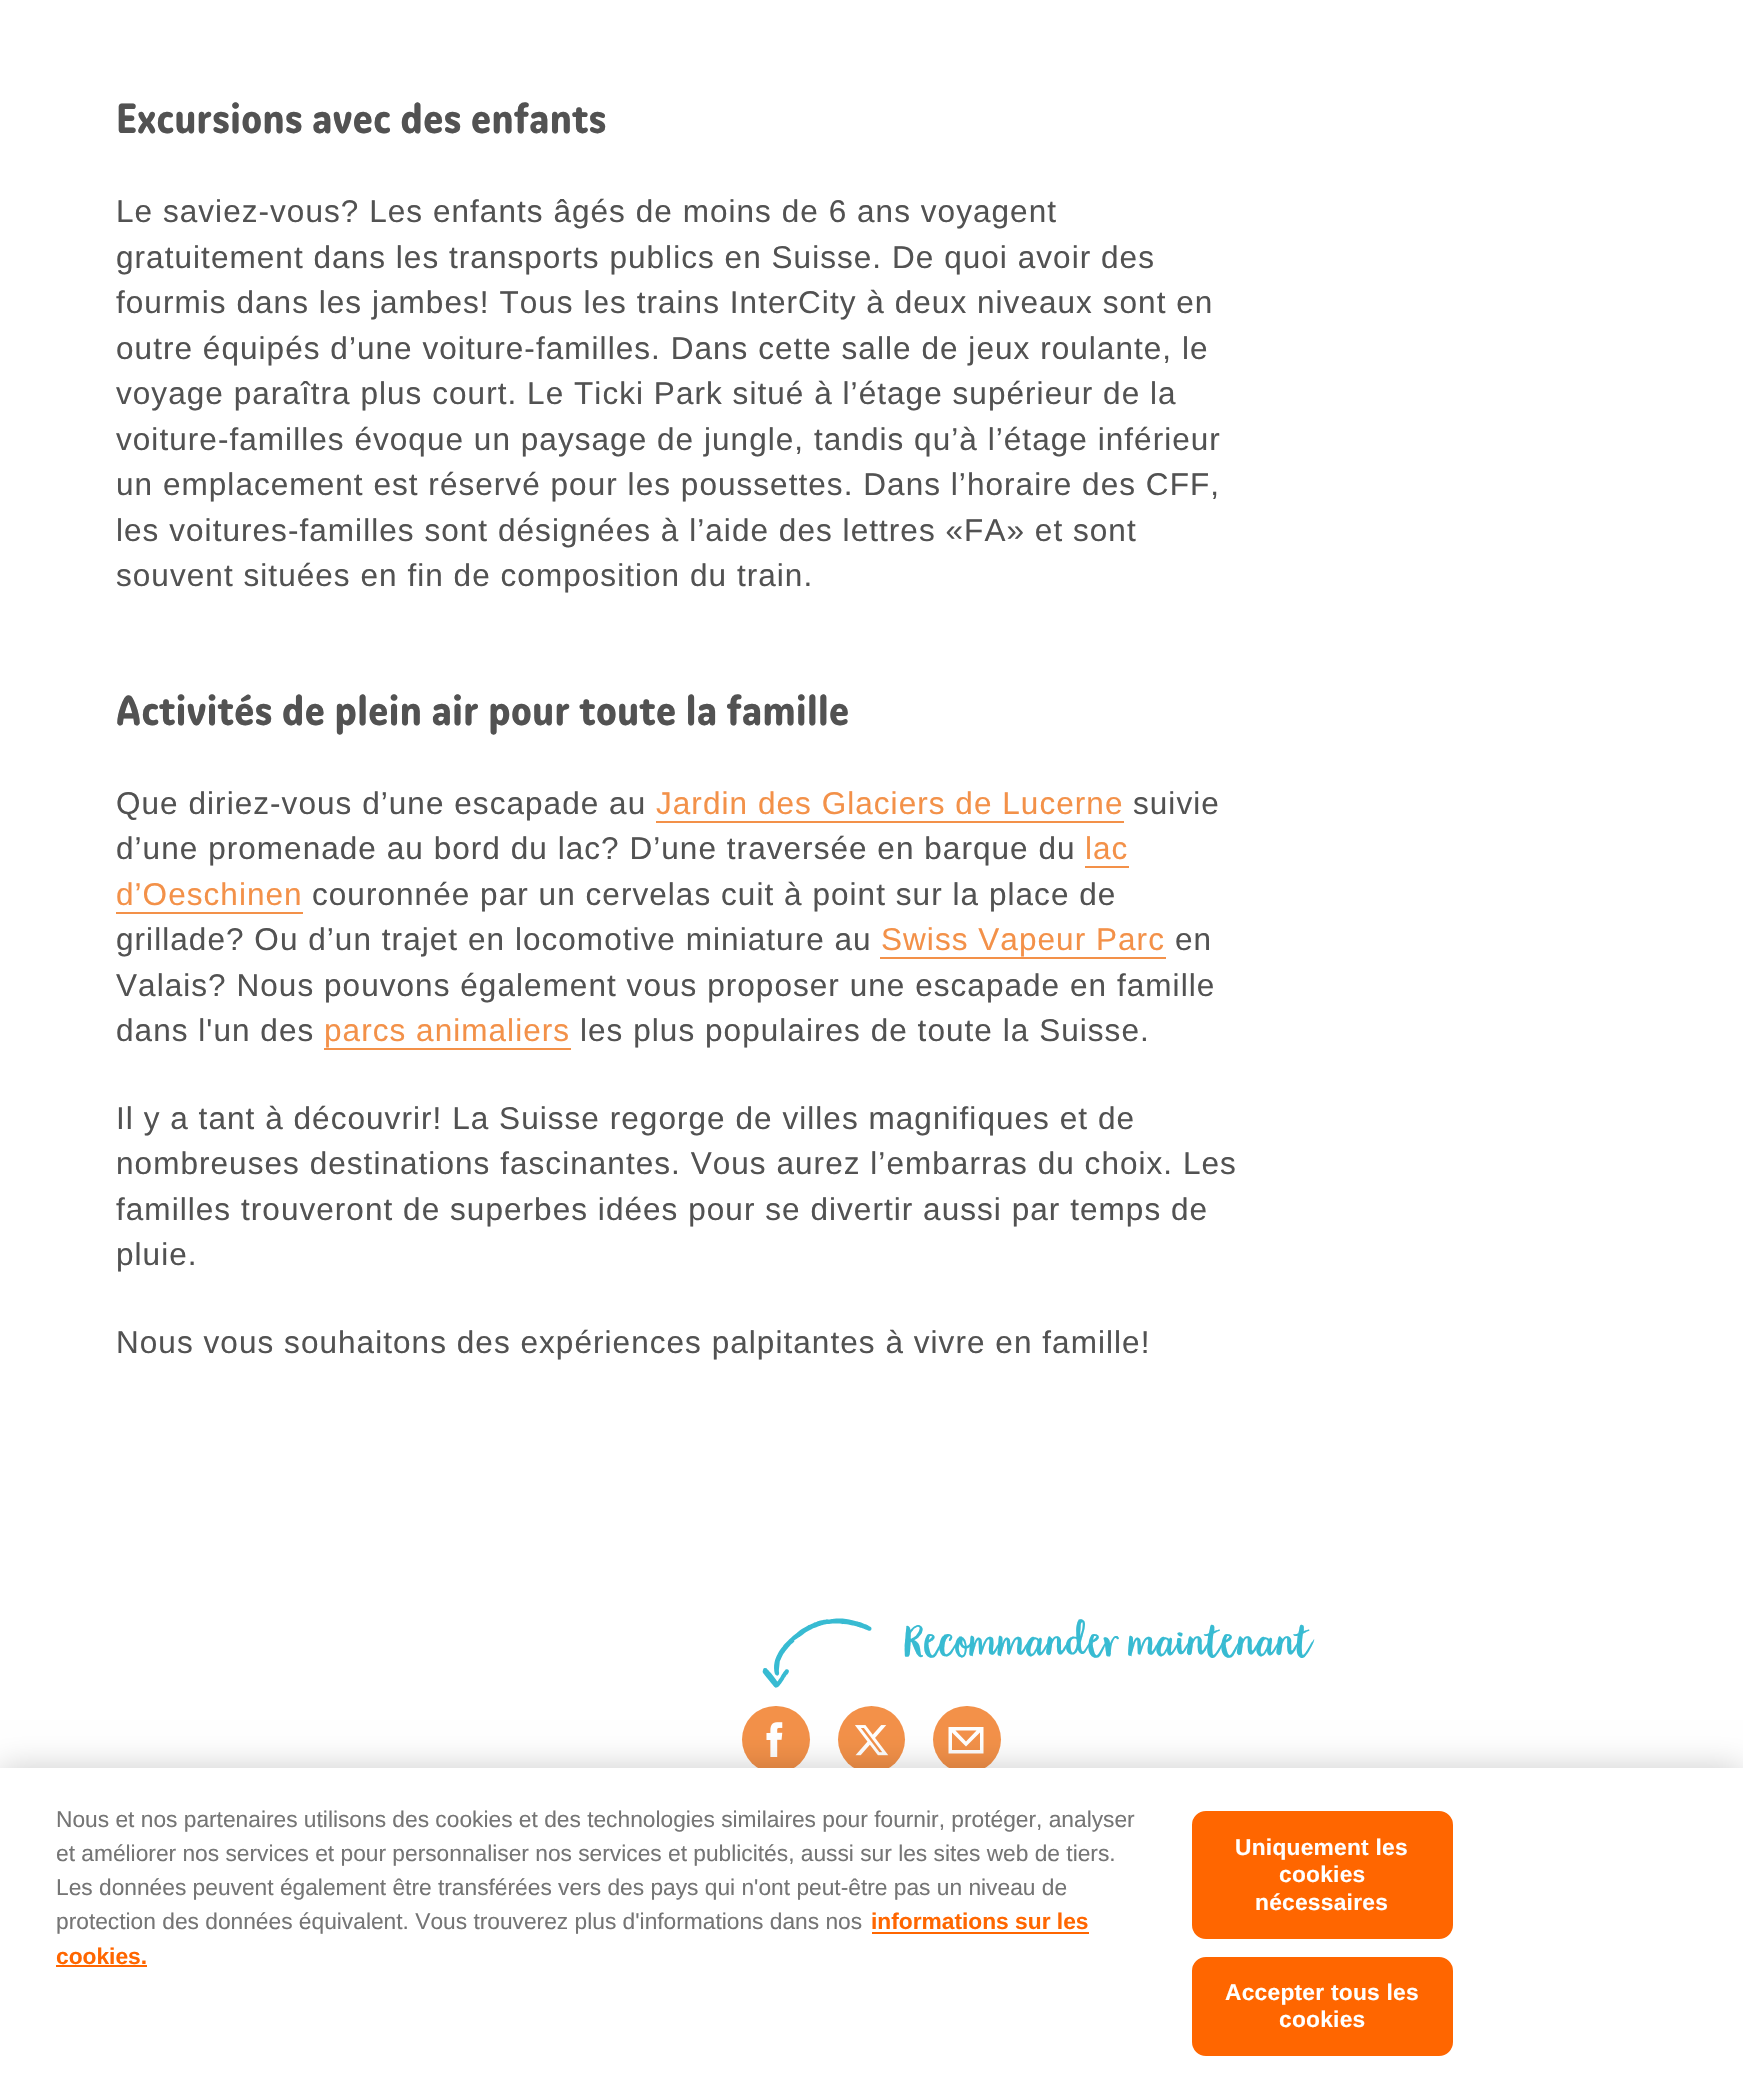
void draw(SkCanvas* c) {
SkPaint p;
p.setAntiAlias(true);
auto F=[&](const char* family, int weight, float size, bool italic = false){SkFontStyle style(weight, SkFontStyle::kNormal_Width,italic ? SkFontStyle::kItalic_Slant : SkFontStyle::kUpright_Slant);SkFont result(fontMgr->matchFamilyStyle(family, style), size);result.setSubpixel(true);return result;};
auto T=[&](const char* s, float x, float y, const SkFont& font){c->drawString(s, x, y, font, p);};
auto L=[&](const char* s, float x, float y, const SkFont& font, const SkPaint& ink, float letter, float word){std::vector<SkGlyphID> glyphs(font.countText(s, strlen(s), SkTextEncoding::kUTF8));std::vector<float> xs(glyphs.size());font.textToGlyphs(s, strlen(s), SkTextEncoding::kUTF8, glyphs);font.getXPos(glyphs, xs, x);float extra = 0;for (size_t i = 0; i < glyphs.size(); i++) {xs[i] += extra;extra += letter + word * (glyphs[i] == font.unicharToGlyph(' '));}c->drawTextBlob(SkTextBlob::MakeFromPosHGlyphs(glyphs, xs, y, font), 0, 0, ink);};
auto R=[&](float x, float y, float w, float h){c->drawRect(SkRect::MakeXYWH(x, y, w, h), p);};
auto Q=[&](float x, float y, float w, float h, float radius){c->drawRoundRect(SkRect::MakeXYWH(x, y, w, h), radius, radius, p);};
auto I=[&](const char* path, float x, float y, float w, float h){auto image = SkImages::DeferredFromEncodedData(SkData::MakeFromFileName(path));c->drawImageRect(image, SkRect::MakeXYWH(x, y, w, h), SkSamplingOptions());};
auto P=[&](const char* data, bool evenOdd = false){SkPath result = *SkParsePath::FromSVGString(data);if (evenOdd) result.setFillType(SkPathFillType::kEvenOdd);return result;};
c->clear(0xffffffff);
auto f1 = F("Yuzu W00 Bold",700,42);
p.setColor(0xff525252);
L("Excursions avec des enfants",116,133,f1,p,.35,0);
auto f2 = F("Liberation Sans",400,31.5);
L("Le saviez-vous? Les enfants âgés de moins de 6 ans voyagent",116,222,f2,p,1.05,0);
L("gratuitement dans les transports publics en Suisse. De quoi avoir des",116,268,f2,p,1.05,0);
L("fourmis dans les jambes! Tous les trains InterCity à deux niveaux sont en",116,313,f2,p,1.05,0);
L("outre équipés d’une voiture-familles. Dans cette salle de jeux roulante, le",116,359,f2,p,1.05,0);
L("voyage paraîtra plus court. Le Ticki Park situé à l’étage supérieur de la",116,404,f2,p,1.05,0);
L("voiture-familles évoque un paysage de jungle, tandis qu’à l’étage inférieur",116,450,f2,p,1.05,0);
L("un emplacement est réservé pour les poussettes. Dans l’horaire des CFF,",116,495,f2,p,1.05,0);
L("les voitures-familles sont désignées à l’aide des lettres «FA» et sont",116,541,f2,p,1.05,0);
L("souvent situées en fin de composition du train.",116,586,f2,p,1.05,0);
L("Activités de plein air pour toute la famille",116,725,f1,p,.35,0);
L("Que diriez-vous d’une escapade au",116,814,f2,p,1.05,0);
p.setColor(0xfff39149);
L("Jardin des Glaciers de Lucerne",656,814,f2,p,1.05,0);
R(656,821,468,2);
p.setColor(0xff525252);
L("suivie",1133,814,f2,p,1.05,0);
L("d’une promenade au bord du lac? D’une traversée en barque du",116,859,f2,p,1.05,0);
p.setColor(0xfff39149);
L("lac",1085,859,f2,p,1.05,0);
R(1085,866,44,2);
L("d’Oeschinen",116,905,f2,p,1.05,0);
R(116,912,187,2);
p.setColor(0xff525252);
L("couronnée par un cervelas cuit à point sur la place de",312,905,f2,p,1.05,0);
L("grillade? Ou d’un trajet en locomotive miniature au",116,950,f2,p,1.05,0);
p.setColor(0xfff39149);
L("Swiss Vapeur Parc",881,950,f2,p,1.05,0);
R(880,957,286,2);
p.setColor(0xff525252);
L("en",1175,950,f2,p,1.05,0);
L("Valais? Nous pouvons également vous proposer une escapade en famille",116,996,f2,p,1.05,0);
L("dans l'un des",116,1041,f2,p,1.05,0);
p.setColor(0xfff39149);
L("parcs animaliers",324,1041,f2,p,1.05,0);
R(324,1048,247,2);
p.setColor(0xff525252);
L("les plus populaires de toute la Suisse.",580,1041,f2,p,1.05,0);
L("Il y a tant à découvrir! La Suisse regorge de villes magnifiques et de",116,1129,f2,p,1.05,0);
L("nombreuses destinations fascinantes. Vous aurez l’embarras du choix. Les",116,1174,f2,p,1.05,0);
L("familles trouveront de superbes idées pour se divertir aussi par temps de",116,1220,f2,p,1.05,0);
L("pluie.",116,1265,f2,p,1.05,0);
L("Nous vous souhaitons des expériences palpitantes à vivre en famille!",116,1353,f2,p,1.05,0);
I("1.png",762,1618,110,70);
auto f3 = F("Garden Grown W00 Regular",400,47.25);
p.setColor(0xff38bbd2);
L("Recommander maintenant",905,1655,f3,p,1.05,0);
p.setColor(0xfff39149);
Q(742,1706,68,67,33.5);
I("2.png",766,1722,17,35);
c->drawCircle(871.5,1739.5,33.5,p);
I("3.png",855,1725,34,31);
Q(933,1706,68,67,33.5);
p.setColor(0xffffffff);
c->drawPath(P("M948.5 1727v26.5h35v-26.5zm28 3.5l-10.5 11l-10.5-11zm3.5 19.5h-28v-17.5l14 14l14-14z"),p);
p.setColor(0x33000000);
p.setMaskFilter(SkMaskFilter::MakeBlur(kNormal_SkBlurStyle, 16));
c->drawRect(SkRect::MakeXYWH(0,1768,1743,323),p);
p.setMaskFilter(nullptr);
p.setColor(0xffffffff);
R(0,1768,1743,323);
auto f4 = F("Liberation Sans",400,22.75);
p.setColor(0xff757575);
T("Nous et nos partenaires utilisons des cookies et des technologies similaires pour fournir, protéger, analyser",56,1827,f4);
T("et améliorer nos services et pour personnaliser nos services et publicités, aussi sur les sites web de tiers.",56,1861,f4);
T("Les données peuvent également être transférées vers des pays qui n'ont peut-être pas un niveau de",56,1895,f4);
T("protection des données équivalent. Vous trouverez plus d'informations dans nos",56,1929,f4);
auto f5 = F("Liberation Sans",700,22.75);
p.setColor(0xffff6600);
T("informations sur les",871,1929,f5);
R(872,1932,217,2);
T("cookies.",56,1964,f5);
R(56,1965,91,2);
c->drawRoundRect(SkRect::MakeXYWH(1193,1812,259,126),13,13,p);
p.setStroke(true);
p.setStrokeWidth(2);
c->drawRoundRect(SkRect::MakeXYWH(1193,1812,259,126),13,13,p);
p.setStroke(false);
p.setColor(0xffffffff);
L("Uniquement les",1235,1855,f5,p,.25,0);
L("cookies",1279,1882,f5,p,.25,0);
L("nécessaires",1255,1910,f5,p,.25,0);
p.setColor(0xffff6600);
c->drawRoundRect(SkRect::MakeXYWH(1193,1958,259,97),13,13,p);
p.setStroke(true);
c->drawRoundRect(SkRect::MakeXYWH(1193,1958,259,97),13,13,p);
p.setStroke(false);
p.setColor(0xffffffff);
L("Accepter tous les",1225,2000,f5,p,.25,0);
L("cookies",1279,2027,f5,p,.25,0);
}
